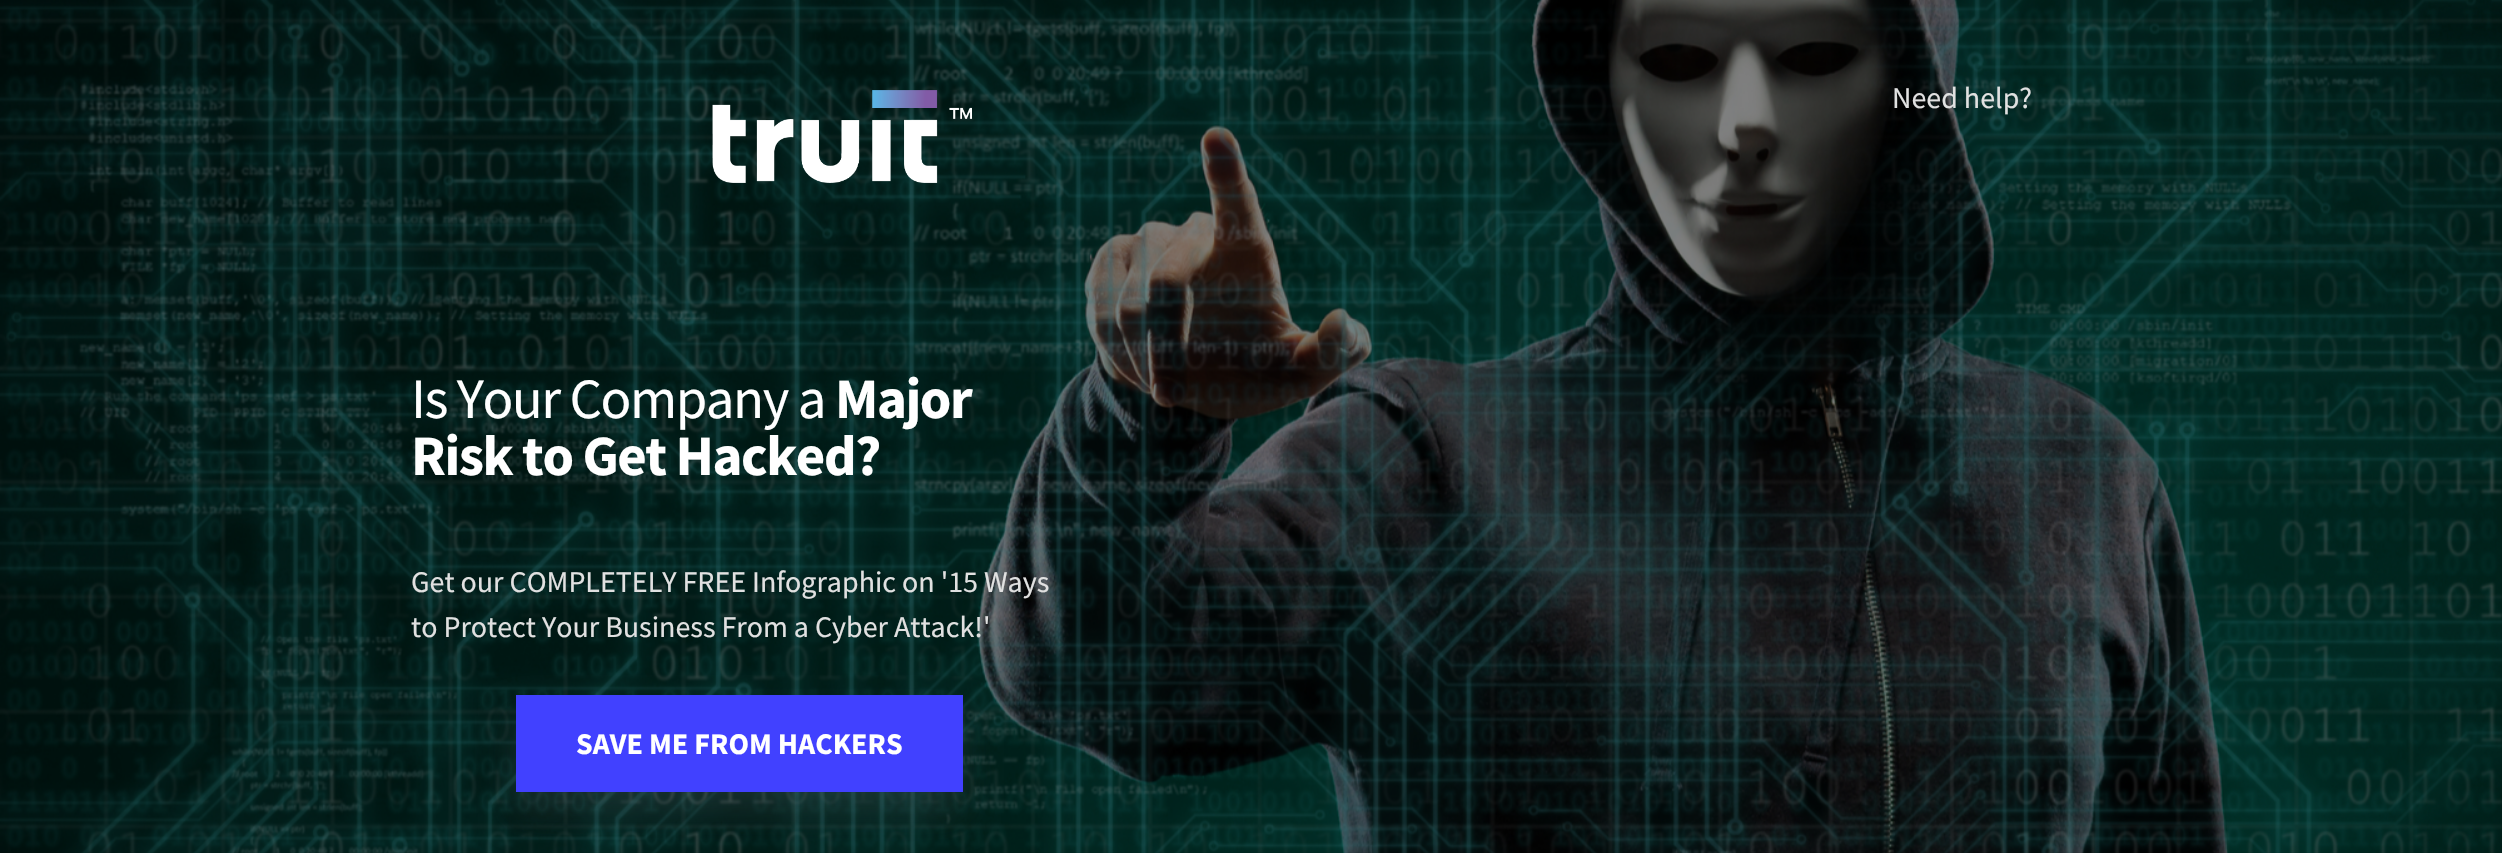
void draw(SkCanvas* c) {
SkPaint p;
p.setAntiAlias(true);
auto F=[&](const char* family, int weight, float size, bool italic = false){SkFontStyle style(weight, SkFontStyle::kNormal_Width,italic ? SkFontStyle::kItalic_Slant : SkFontStyle::kUpright_Slant);SkFont result(fontMgr->matchFamilyStyle(family, style), size);result.setSubpixel(true);return result;};
auto T=[&](const char* s, float x, float y, const SkFont& font){c->drawString(s, x, y, font, p);};
auto L=[&](const char* s, float x, float y, const SkFont& font, const SkPaint& ink, float letter, float word){std::vector<SkGlyphID> glyphs(font.countText(s, strlen(s), SkTextEncoding::kUTF8));std::vector<float> xs(glyphs.size());font.textToGlyphs(s, strlen(s), SkTextEncoding::kUTF8, glyphs);font.getXPos(glyphs, xs, x);float extra = 0;for (size_t i = 0; i < glyphs.size(); i++) {xs[i] += extra;extra += letter + word * (glyphs[i] == font.unicharToGlyph(' '));}c->drawTextBlob(SkTextBlob::MakeFromPosHGlyphs(glyphs, xs, y, font), 0, 0, ink);};
auto R=[&](float x, float y, float w, float h){c->drawRect(SkRect::MakeXYWH(x, y, w, h), p);};
auto I=[&](const char* path, float x, float y, float w, float h){auto image = SkImages::DeferredFromEncodedData(SkData::MakeFromFileName(path));c->drawImageRect(image, SkRect::MakeXYWH(x, y, w, h), SkSamplingOptions());};
c->clear(0xff000000);
I("1.png",0,0,2502,853);
I("2.png",712,90,260,93);
auto f1 = F("Source Sans Pro",400,30);
p.setColor(0xffe1e1e1);
T("Need help?",1892,108,f1);
auto f2 = F("Source Sans Pro",400,57);
p.setColor(0xffffffff);
L("Is Your Company a",411,418,f2,p,-1.5,0);
auto f3 = F("Source Sans Pro",700,57);
L("Major",835,418,f3,p,-1.5,0);
L("Risk to Get Hacked?",411,475,f3,p,-1.5,0);
p.setColor(0xffe1e1e1);
T("Get our COMPLETELY FREE Infographic on '15 Ways",411,592,f1);
T("to Protect Your Business From a Cyber Attack!'",411,637,f1);
p.setColor(0x33626a73);
p.setMaskFilter(SkMaskFilter::MakeBlur(kNormal_SkBlurStyle, 17));
c->drawRect(SkRect::MakeXYWH(516,716,447,97),p);
p.setMaskFilter(nullptr);
p.setColor(0xff4141ff);
R(516,695,447,97);
auto f4 = F("Source Sans Pro",700,30);
p.setColor(0xffffffff);
T("SAVE ME FROM HACKERS",576,754,f4);
}
